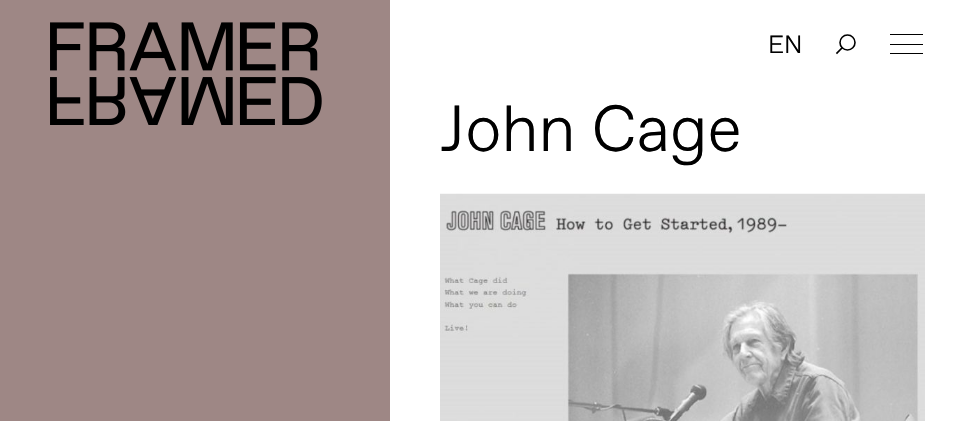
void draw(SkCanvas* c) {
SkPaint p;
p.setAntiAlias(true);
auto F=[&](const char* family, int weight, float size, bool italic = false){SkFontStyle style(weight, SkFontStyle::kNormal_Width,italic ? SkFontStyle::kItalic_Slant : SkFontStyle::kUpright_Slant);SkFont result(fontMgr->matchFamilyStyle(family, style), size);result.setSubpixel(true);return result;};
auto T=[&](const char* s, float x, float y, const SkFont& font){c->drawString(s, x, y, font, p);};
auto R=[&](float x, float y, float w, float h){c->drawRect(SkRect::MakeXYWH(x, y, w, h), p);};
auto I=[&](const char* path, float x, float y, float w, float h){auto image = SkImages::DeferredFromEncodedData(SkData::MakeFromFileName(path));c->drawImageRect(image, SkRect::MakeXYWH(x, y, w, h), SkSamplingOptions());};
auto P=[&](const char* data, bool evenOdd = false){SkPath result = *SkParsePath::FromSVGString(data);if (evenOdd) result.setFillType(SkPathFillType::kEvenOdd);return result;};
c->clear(0xff9e8785);
I("1.png",50,22,272,103);
p.setColor(0xffffffff);
R(390,0,584,421);
auto f1 = F("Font",300,25);
p.setColor(0xff000000);
T("EN",768,53,f1);
p.setStroke(true);
p.setStrokeWidth(1.6);
p.setStrokeCap(SkPaint::kSquare_Cap);
c->drawPath(P("M842 48l-5 5"),p);
p.setStrokeCap(SkPaint::kButt_Cap);
c->drawCircle(847.5,42.5,7.5,p);
p.setStroke(false);
R(890,34,33,1);
R(890,44,33,1);
R(890,53,33,1);
auto f2 = F("Font",300,65);
T("John Cage",440,151,f2);
I("2.png",440,193,485,228);
}
